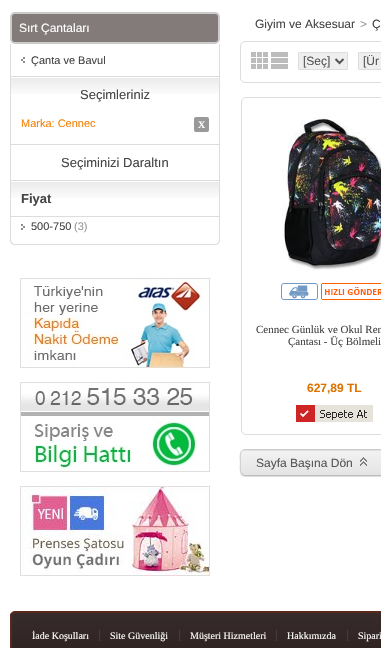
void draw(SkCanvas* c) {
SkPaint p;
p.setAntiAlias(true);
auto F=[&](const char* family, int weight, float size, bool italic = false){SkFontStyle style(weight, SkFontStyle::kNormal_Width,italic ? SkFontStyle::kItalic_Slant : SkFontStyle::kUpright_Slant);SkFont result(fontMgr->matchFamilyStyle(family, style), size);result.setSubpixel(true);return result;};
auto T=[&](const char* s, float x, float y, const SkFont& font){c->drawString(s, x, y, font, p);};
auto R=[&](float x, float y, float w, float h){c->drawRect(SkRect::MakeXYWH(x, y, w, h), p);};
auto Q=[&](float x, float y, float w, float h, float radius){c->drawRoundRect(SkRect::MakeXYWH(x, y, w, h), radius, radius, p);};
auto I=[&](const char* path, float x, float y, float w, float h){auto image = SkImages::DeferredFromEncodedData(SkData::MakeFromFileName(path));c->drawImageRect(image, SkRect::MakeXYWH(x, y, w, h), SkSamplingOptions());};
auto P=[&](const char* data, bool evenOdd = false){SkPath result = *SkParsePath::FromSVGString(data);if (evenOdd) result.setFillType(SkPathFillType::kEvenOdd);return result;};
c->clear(0xffffffff);
p.setColor(0xff827b7a);
c->drawRoundRect(SkRect::MakeXYWH(11,13,208,30),4,4,p);
p.setStroke(true);
p.setStrokeWidth(2);
p.setColor(0xffcccccc);
c->drawRoundRect(SkRect::MakeXYWH(11,13,208,30),4,4,p);
auto f1 = F("Liberation Sans",400,12);
p.setStroke(false);
p.setColor(0xffffffff);
T("Sırt Çantaları",19,32,f1);
p.setColor(0xffdddddd);
c->drawPath(P("M10 44h210v196c0 3-2 5-5 5h-200c-3 0-5-2-5-5zm1 0h208v196c0 2-2 4-4 4h-200c-2 0-4-2-4-4z",true),p);
I("1.png",21,57,4,6);
R(11,76,208,1);
auto f2 = F("Liberation Sans",400,11);
p.setColor(0xff444444);
T("Çanta ve Bavul",31,64,f2);
I("2.png",11,78,208,16);
p.setColor(0xffdddddd);
R(11,144,208,1);
auto f3 = F("Liberation Sans",400,13);
p.setColor(0xff444444);
T("Seçimleriniz",80,99,f3);
p.setColor(0xfff38207);
T("Marka: Cennec",21,127,f2);
p.setColor(0xff999999);
Q(194,117,15,15,2);
auto f4 = F("Liberation Serif",700,10);
p.setColor(0xffffffff);
T("X",198,128,f4);
p.setColor(0xff444444);
T("Seçiminizi Daraltın",61,167,f3);
I("2.png",11,182,208,16);
p.setColor(0xffdddddd);
R(11,180,208,1);
R(11,216,208,1);
auto f5 = F("Liberation Sans",700,13);
p.setColor(0xff444444);
T("Fiyat",21,203,f5);
I("3.png",21,224,4,6);
T("500-750",31,230,f2);
p.setColor(0xff999999);
T("(3)",74,230,f2);
I("4.png",20,278,190,90);
I("5.png",20,382,190,90);
I("6.png",20,486,190,90);
p.setColor(0xff444444);
T("Giyim ve Aksesuar",255,28,f1);
p.setColor(0xff999999);
T(">",360,28,f1);
p.setColor(0xff444444);
T("Ç",372,28,f1);
p.setStroke(true);
p.setStrokeWidth(1);
p.setColor(0xffdddddd);
c->drawRoundRect(SkRect::MakeXYWH(240.5,41.5,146,41),4.5,4.5,p);
I("7.png",251,52,17,17);
I("8.png",271,52,17,17);
p.setStroke(false);
p.setColor(0xffefefef);
c->drawRoundRect(SkRect::MakeXYWH(298.5,52.5,49,17),.5,.5,p);
p.setStroke(true);
p.setColor(0xffdddddd);
c->drawRoundRect(SkRect::MakeXYWH(298.5,52.5,49,17),.5,.5,p);
p.setStrokeWidth(2);
p.setColor(0xff555555);
c->drawPath(P("M335.5 59l4 4l4-4"),p);
p.setStroke(false);
T("[Seç]",303,65,f1);
p.setColor(0xffefefef);
c->drawRoundRect(SkRect::MakeXYWH(358.5,52.5,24,17),.5,.5,p);
p.setStroke(true);
p.setStrokeWidth(1);
p.setColor(0xffdddddd);
c->drawRoundRect(SkRect::MakeXYWH(358.5,52.5,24,17),.5,.5,p);
p.setStroke(false);
p.setColor(0xff555555);
T("[Ür",363,65,f1);
p.setStroke(true);
p.setColor(0xffdddddd);
c->drawRoundRect(SkRect::MakeXYWH(241.5,97.5,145,337),4.5,4.5,p);
I("9.png",282,116,99,154);
I("10.png",281,283,37,17);
I("11.png",321,283,60,17);
auto f6 = F("Liberation Serif",400,11);
p.setStroke(false);
p.setColor(0xff444444);
T("Cennec Günlük ve Okul Ren",256,333,f6);
T("Çantası - Üç Bölmeli",288,345,f6);
auto f7 = F("Liberation Sans",700,12);
p.setColor(0xffdd7300);
T("627,89 TL",307,392,f7);
I("12.png",296,405,77,17);
p.setColor(0xffdddddd);
p.setMaskFilter(SkMaskFilter::MakeBlur(kNormal_SkBlurStyle, .5));
c->drawRoundRect(SkRect::MakeXYWH(240,450,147,27),5,5,p);
p.setMaskFilter(nullptr);
I("13.png",240,451,141,25);
p.setStroke(true);
p.setColor(0xffbbbbbb);
c->drawPath(P("M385 474l-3 1.5h-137.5l-2.5-1.5"),p);
p.setColor(0xffcccccc);
c->drawPath(P("M242 474c-2.5-2.5-1.5-8.5-1.5-11.5c0-3.5-2-13 4.5-13h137c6.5 0 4.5 9.5 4.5 13c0 3 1 9-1.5 11.5"),p);
p.setStroke(false);
p.setColor(0xff555555);
T("Sayfa Başına Dön",256,467,f1);
I("14.png",360,457,7,9);
I("15.png",10,613,371,35);
p.setStroke(true);
p.setStrokeWidth(2);
p.setColor(0xff59281a);
c->drawRoundRect(SkRect::MakeXYWH(11,612,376,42),4,4,p);
auto f8 = F("Liberation Serif",400,10);
p.setStroke(false);
p.setColor(0xffffffff);
T("İade Koşulları",32,639,f8);
p.setColor(0xff473c3c);
R(99,630,1,11);
p.setColor(0xffffffff);
T("Site Güvenliği",110,639,f8);
p.setColor(0xff473c3c);
R(179,630,1,11);
p.setColor(0xffffffff);
T("Müşteri Hizmetleri",190,639,f8);
p.setColor(0xff473c3c);
R(276,630,1,11);
p.setColor(0xffffffff);
T("Hakkımızda",287,639,f8);
p.setColor(0xff473c3c);
R(347,630,1,11);
p.setColor(0xffffffff);
T("Sipari",358,639,f8);
}
